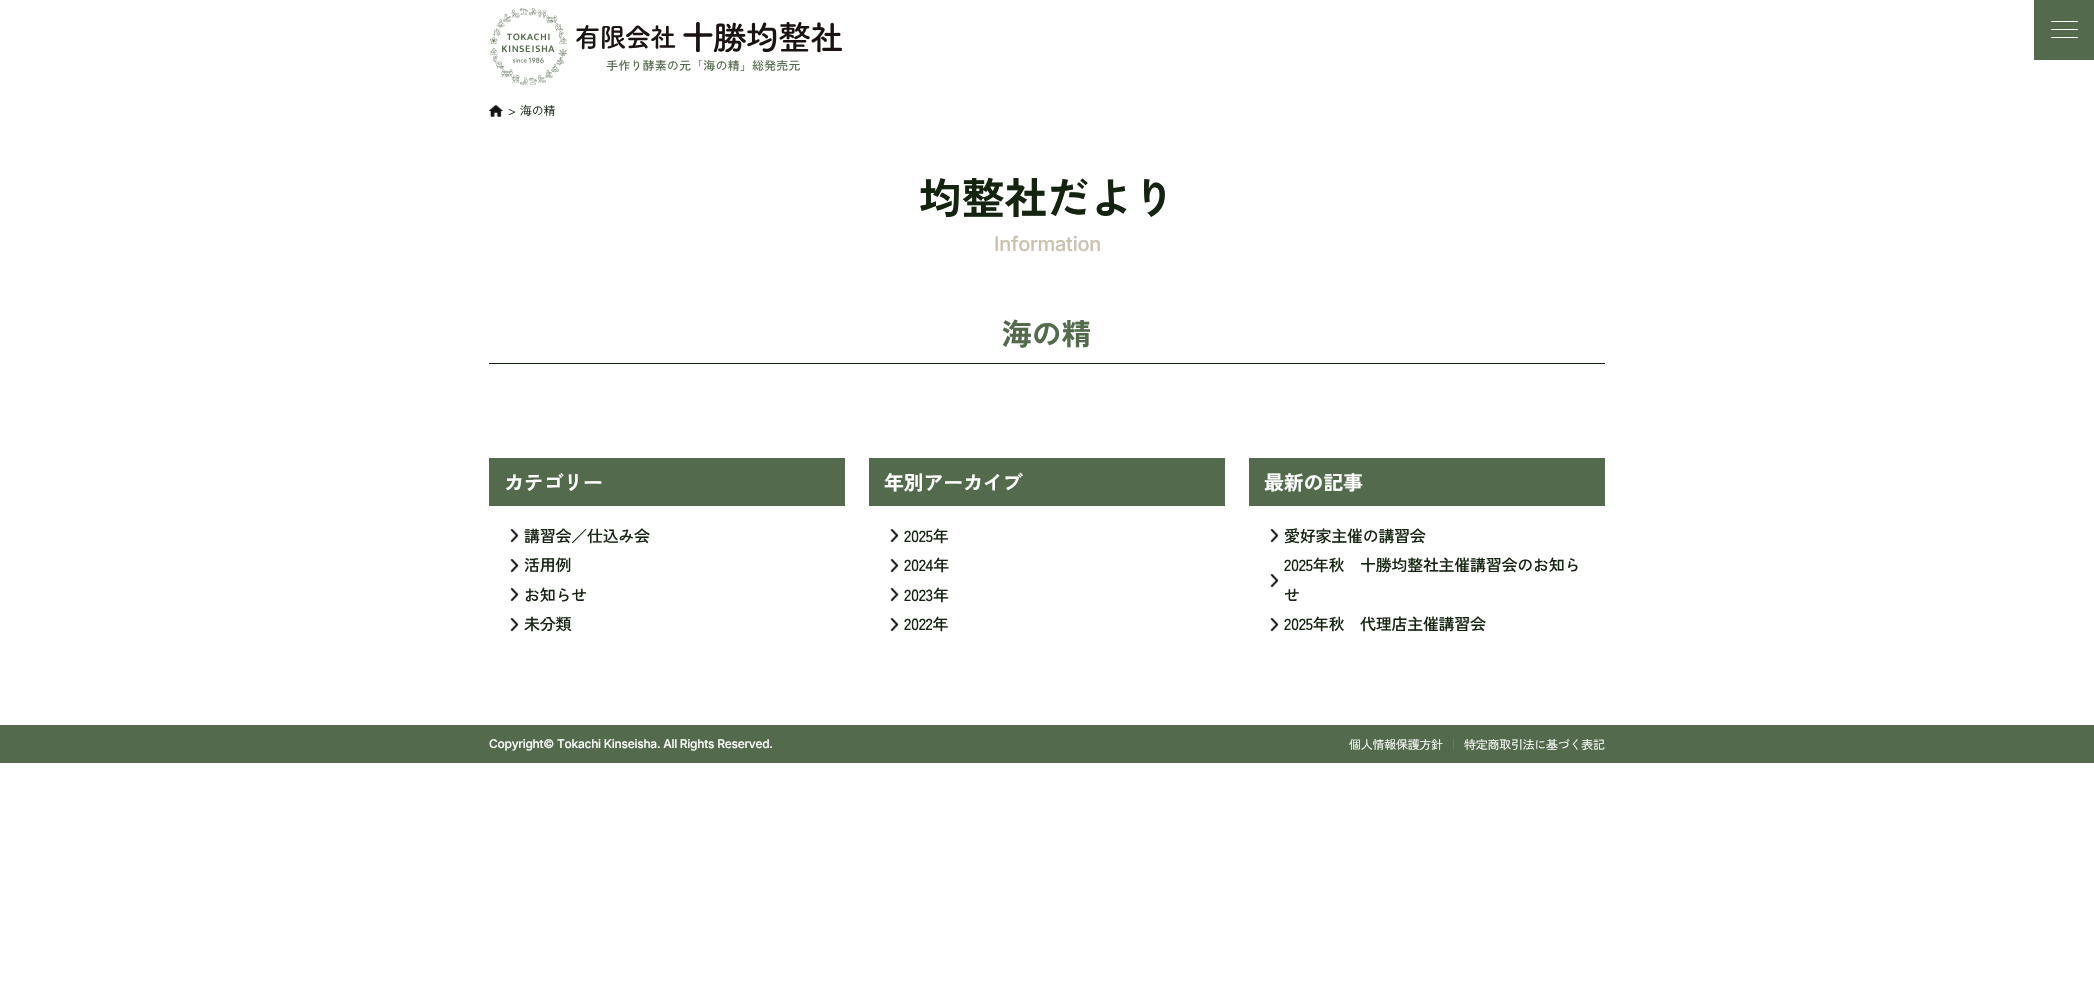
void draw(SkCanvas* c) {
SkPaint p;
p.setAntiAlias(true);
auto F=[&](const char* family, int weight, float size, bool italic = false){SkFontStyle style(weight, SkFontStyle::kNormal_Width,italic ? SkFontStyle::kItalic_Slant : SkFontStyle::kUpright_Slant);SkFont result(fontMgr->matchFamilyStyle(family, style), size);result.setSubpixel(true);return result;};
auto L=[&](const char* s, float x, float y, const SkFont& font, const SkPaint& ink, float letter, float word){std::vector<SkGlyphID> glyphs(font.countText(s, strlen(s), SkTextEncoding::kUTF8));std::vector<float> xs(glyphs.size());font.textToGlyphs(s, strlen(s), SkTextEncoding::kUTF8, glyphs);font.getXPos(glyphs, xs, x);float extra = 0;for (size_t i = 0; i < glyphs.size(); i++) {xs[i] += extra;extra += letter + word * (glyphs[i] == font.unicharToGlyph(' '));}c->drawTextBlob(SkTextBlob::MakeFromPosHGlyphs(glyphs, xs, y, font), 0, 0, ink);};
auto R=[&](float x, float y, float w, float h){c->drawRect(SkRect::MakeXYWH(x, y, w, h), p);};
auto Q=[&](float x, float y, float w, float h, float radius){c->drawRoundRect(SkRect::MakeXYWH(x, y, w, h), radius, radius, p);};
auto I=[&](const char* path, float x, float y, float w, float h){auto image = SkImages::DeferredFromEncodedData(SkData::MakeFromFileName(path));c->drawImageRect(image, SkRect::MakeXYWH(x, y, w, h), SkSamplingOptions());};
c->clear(0xffffffff);
I("1.png",490,8,352,77);
p.setColor(0xff536a4d);
R(2034,0,60,60);
p.setColor(0xffffffff);
Q(2051,21,27,1,.5);
Q(2051,29,27,1,.5);
Q(2051,37,27,1,.5);
I("2.png",489,105,14,12);
auto f1 = F("Zen Kaku Gothic New",400,12);
p.setColor(0xff142410);
L(">",508,115,f1,p,-.27,0);
L("海の精",520,115,f1,p,-.27,0);
auto f2 = F("Zen Kaku Gothic New",700,43);
L("均整社だより",919,214,f2,p,-.27,0);
auto f3 = F("Inter",500,20);
p.setColor(0xffcbc0ae);
L("Information",994,251,f3,p,-.27,0);
p.setColor(0xff142410);
R(489,363,1116,1);
auto f4 = F("Zen Kaku Gothic New",700,30);
p.setColor(0xff536a4d);
L("海の精",1002,345,f4,p,-.27,0);
R(489,458,356,48);
auto f5 = F("Zen Kaku Gothic New",700,20);
p.setColor(0xffffffff);
L("カテゴリー",504,490,f5,p,-.27,0);
I("3.png",510,529,9,14);
auto f6 = F("Zen Kaku Gothic New",500,16);
p.setColor(0xff142410);
L("講習会／仕込み会",524,542,f6,p,-.27,0);
I("3.png",510,559,9,14);
L("活用例",524,571,f6,p,-.27,0);
I("3.png",510,588,9,14);
L("お知らせ",524,601,f6,p,-.27,0);
I("3.png",510,618,9,14);
L("未分類",524,630,f6,p,-.27,0);
p.setColor(0xff536a4d);
R(869,458,356,48);
p.setColor(0xffffffff);
L("年別アーカイブ",884,490,f5,p,-.27,0);
I("3.png",890,529,9,14);
p.setColor(0xff142410);
L("2025年",904,542,f6,p,-.27,0);
I("3.png",890,559,9,14);
L("2024年",904,571,f6,p,-.27,0);
I("3.png",890,588,9,14);
L("2023年",904,601,f6,p,-.27,0);
I("3.png",890,618,9,14);
L("2022年",904,630,f6,p,-.27,0);
p.setColor(0xff536a4d);
R(1249,458,356,48);
p.setColor(0xffffffff);
L("最新の記事",1264,490,f5,p,-.27,0);
I("3.png",1270,529,9,14);
p.setColor(0xff142410);
L("愛好家主催の講習会",1284,542,f6,p,-.27,0);
I("3.png",1270,574,9,14);
L("2025年秋　十勝均整社主催講習会のお知ら",1284,571,f6,p,-.27,0);
L("せ",1284,601,f6,p,-.27,0);
I("3.png",1270,618,9,14);
L("2025年秋　代理店主催講習会",1284,630,f6,p,-.27,0);
p.setColor(0xff536a4d);
R(0,725,2094,38);
auto f7 = F("Inter",500,12);
p.setColor(0xffffffff);
L("Copyright© Tokachi Kinseisha. All Rights Reserved.",489,748,f7,p,-.27,0);
L("個人情報保護方針",1349,749,f1,p,-.27,0);
p.setColor(0xff707070);
R(1453,738,1,12);
p.setColor(0xffffffff);
L("特定商取引法に基づく表記",1464,749,f1,p,-.27,0);
}
